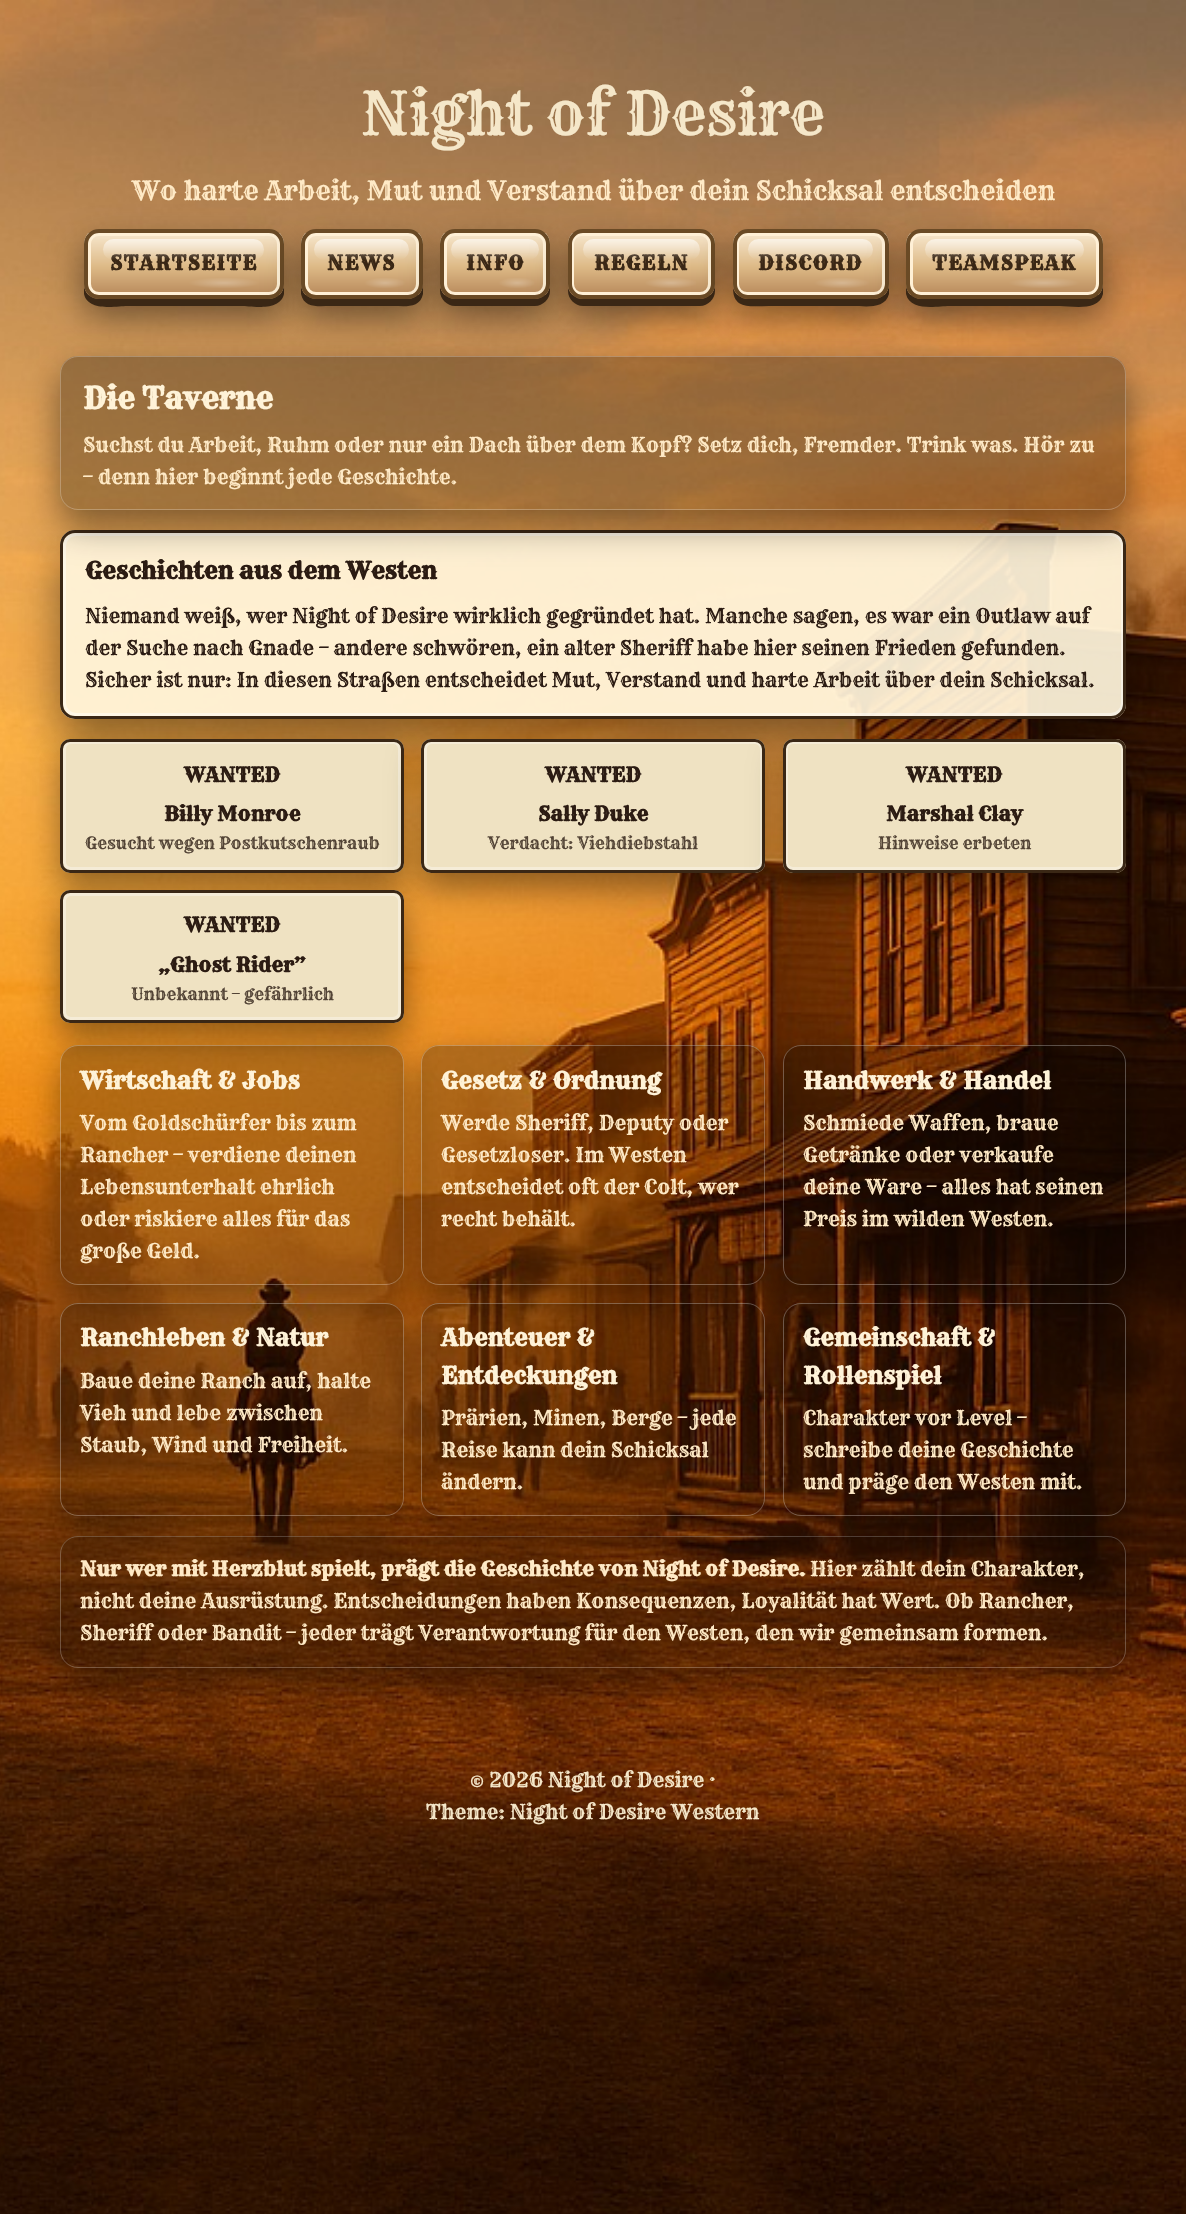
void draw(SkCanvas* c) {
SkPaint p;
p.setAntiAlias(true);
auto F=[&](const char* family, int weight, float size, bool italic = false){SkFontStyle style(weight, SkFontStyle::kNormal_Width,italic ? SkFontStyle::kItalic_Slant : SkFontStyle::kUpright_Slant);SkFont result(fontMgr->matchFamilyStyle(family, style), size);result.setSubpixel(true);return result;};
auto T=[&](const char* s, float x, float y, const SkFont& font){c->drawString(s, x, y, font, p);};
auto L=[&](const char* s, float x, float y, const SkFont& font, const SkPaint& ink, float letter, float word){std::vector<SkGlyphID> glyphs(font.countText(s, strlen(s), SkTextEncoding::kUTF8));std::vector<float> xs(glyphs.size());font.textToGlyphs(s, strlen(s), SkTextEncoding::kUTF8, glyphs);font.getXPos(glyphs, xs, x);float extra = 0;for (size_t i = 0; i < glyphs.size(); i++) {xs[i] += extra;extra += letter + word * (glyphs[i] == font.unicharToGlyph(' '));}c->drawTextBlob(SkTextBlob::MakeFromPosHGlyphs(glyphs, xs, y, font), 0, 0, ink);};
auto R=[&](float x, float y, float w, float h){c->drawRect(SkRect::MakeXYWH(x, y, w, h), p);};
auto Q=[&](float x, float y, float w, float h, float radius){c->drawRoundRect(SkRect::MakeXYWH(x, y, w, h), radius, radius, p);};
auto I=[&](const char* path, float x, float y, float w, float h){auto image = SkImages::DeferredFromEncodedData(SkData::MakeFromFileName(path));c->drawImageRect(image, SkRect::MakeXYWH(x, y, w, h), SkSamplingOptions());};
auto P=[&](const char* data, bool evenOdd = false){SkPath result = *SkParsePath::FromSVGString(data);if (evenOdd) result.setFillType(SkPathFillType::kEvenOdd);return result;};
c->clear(0xffffffff);
I("1.png",0,0,1186,2214);
auto f1 = F("Rye",400,59.25);
p.setColor(0xfff5e7c9);
T("Night of Desire",361,135,f1);
auto f2 = F("Rye",400,26.1);
p.setColor(0xffffeac6);
T("Wo harte Arbeit, Mut und Verstand über dein Schicksal entscheiden",132,200,f2);
p.setColor(0x73000000);
p.setMaskFilter(SkMaskFilter::MakeBlur(kNormal_SkBlurStyle, 17.5));
c->drawRoundRect(SkRect::MakeXYWH(84,246,200,70),15,15,p);
p.setMaskFilter(nullptr);
p.setColor(0xff3a2715);
c->drawPath(P("M84 286v8c4 18 33 12 43 12h114c10 0 39 6 43-12v-46v36c0 8-7 15-15 15h-170c-8 0-14-6-15-13z"),p);
c->save();
c->clipPath(P("M99 229h170c8.5 0 15 6.5 15 15v40c0 8.5-6.5 15-15 15h-170c-8.5 0-15-6.5-15-15v-40c0-8.5 6.5-15 15-15z"),true);
{
const SkColor colors[] = {0xfff7e7cd,0xffddb986,0xffb88a5c};
const float stops[] = {0,.55,1};
const SkPoint ends[] = {{184,233}, {184,295}};
p.setShader(SkGradientShader::MakeLinear(ends, colors, stops, 3, SkTileMode::kClamp));
p.setAlpha(255);
}
R(84,233,200,62);
c->restore();
p.setStroke(true);
p.setStrokeWidth(3);
p.setShader(nullptr);
p.setColor(0xfffff0d6);
c->drawRoundRect(SkRect::MakeXYWH(89.5,234.5,189,59),9.5,9.5,p);
p.setStrokeWidth(4);
p.setColor(0xff6a4a25);
c->drawRoundRect(SkRect::MakeXYWH(86,231,196,66),13,13,p);
auto f3 = F("Rye",700,20);
p.setStroke(false);
p.setColor(0xff3a2715);
L("STARTSEITE",110,270,f3,p,1.25,0);
{
const SkColor colors[] = {0x99ffffff,0x00ffffff};
const float stops[] = {0,1};
const SkPoint ends[] = {{183,239}, {183,260}};
p.setShader(SkGradientShader::MakeLinear(ends, colors, stops, 2, SkTileMode::kClamp));
p.setAlpha(255);
}
Q(103,239,161,21,10.5);
{
const SkColor colors[] = {0x40ffffff,0x00ffffff};
const float stops[] = {0,.7};
SkMatrix m = SkMatrix::Translate(224,283).preScale(51,8);
p.setShader(SkGradientShader::MakeRadial({0, 0}, 1, colors, stops, 2, SkTileMode::kClamp, 0, &m));
p.setAlpha(255);
}
c->drawOval(SkRect::MakeXYWH(188,277.5,72,11),p);
p.setShader(nullptr);
p.setColor(0x73000000);
p.setMaskFilter(SkMaskFilter::MakeBlur(kNormal_SkBlurStyle, 17.5));
c->drawRoundRect(SkRect::MakeXYWH(301,246,122,70),15,15,p);
p.setMaskFilter(nullptr);
p.setColor(0xff3a2715);
c->drawPath(P("M301 248v46c3 15 19 12 30 12h62c11 0 27 3 30-12v-36l-1-11v37c0 8-6 15-14 15h-92c-8 0-15-7-15-15z"),p);
c->save();
c->clipPath(P("M316 229h92c8.5 0 15 6.5 15 15v40c0 8.5-6.5 15-15 15h-92c-8.5 0-15-6.5-15-15v-40c0-8.5 6.5-15 15-15z"),true);
{
const SkColor colors[] = {0xfff7e7cd,0xffddb986,0xffb88a5c};
const float stops[] = {0,.55,1};
const SkPoint ends[] = {{362,233}, {362,295}};
p.setShader(SkGradientShader::MakeLinear(ends, colors, stops, 3, SkTileMode::kClamp));
p.setAlpha(255);
}
R(301,233,122,62);
c->restore();
p.setStroke(true);
p.setStrokeWidth(3);
p.setShader(nullptr);
p.setColor(0xfffff0d6);
c->drawRoundRect(SkRect::MakeXYWH(306.5,234.5,111,59),9.5,9.5,p);
p.setStrokeWidth(4);
p.setColor(0xff6a4a25);
c->drawRoundRect(SkRect::MakeXYWH(303,231,118,66),13,13,p);
p.setStroke(false);
p.setColor(0xff3a2715);
L("NEWS",327,270,f3,p,1.25,0);
{
const SkColor colors[] = {0x99ffffff,0x00ffffff};
const float stops[] = {0,1};
const SkPoint ends[] = {{361,239}, {361,260}};
p.setShader(SkGradientShader::MakeLinear(ends, colors, stops, 2, SkTileMode::kClamp));
p.setAlpha(255);
}
Q(314,239,95,21,10.5);
{
const SkColor colors[] = {0x40ffffff,0x00ffffff};
const float stops[] = {0,.7};
SkMatrix m = SkMatrix::Translate(385,283).preScale(30,8);
p.setShader(SkGradientShader::MakeRadial({0, 0}, 1, colors, stops, 2, SkTileMode::kClamp, 0, &m));
p.setAlpha(255);
}
c->drawOval(SkRect::MakeXYWH(364,277.5,42,11),p);
p.setShader(nullptr);
p.setColor(0x73000000);
p.setMaskFilter(SkMaskFilter::MakeBlur(kNormal_SkBlurStyle, 17.5));
c->drawRoundRect(SkRect::MakeXYWH(440,246,110,70),15,15,p);
p.setMaskFilter(nullptr);
p.setColor(0xff3a2715);
c->drawPath(P("M440 284v7c0 8 7 15 15 15h80c8 0 15-7 15-15v-7c0 8-7 15-15 15h-80c-8 0-15-7-15-15z"),p);
c->save();
c->clipPath(P("M455 229h80c8.5 0 15 6.5 15 15v40c0 8.5-6.5 15-15 15h-80c-8.5 0-15-6.5-15-15v-40c0-8.5 6.5-15 15-15z"),true);
{
const SkColor colors[] = {0xfff7e7cd,0xffddb986,0xffb88a5c};
const float stops[] = {0,.55,1};
const SkPoint ends[] = {{495,233}, {495,295}};
p.setShader(SkGradientShader::MakeLinear(ends, colors, stops, 3, SkTileMode::kClamp));
p.setAlpha(255);
}
R(440,233,110,62);
c->restore();
p.setStroke(true);
p.setStrokeWidth(3);
p.setShader(nullptr);
p.setColor(0xfffff0d6);
c->drawRoundRect(SkRect::MakeXYWH(445.5,234.5,99,59),9.5,9.5,p);
p.setStrokeWidth(4);
p.setColor(0xff6a4a25);
c->drawRoundRect(SkRect::MakeXYWH(442,231,106,66),13,13,p);
p.setStroke(false);
p.setColor(0xff3a2715);
L("INFO",466,270,f3,p,1.25,0);
{
const SkColor colors[] = {0x99ffffff,0x00ffffff};
const float stops[] = {0,1};
const SkPoint ends[] = {{495,239}, {495,260}};
p.setShader(SkGradientShader::MakeLinear(ends, colors, stops, 2, SkTileMode::kClamp));
p.setAlpha(255);
}
Q(451,239,88,21,10.5);
{
const SkColor colors[] = {0x40ffffff,0x00ffffff};
const float stops[] = {0,.7};
SkMatrix m = SkMatrix::Translate(517,283).preScale(27,8);
p.setShader(SkGradientShader::MakeRadial({0, 0}, 1, colors, stops, 2, SkTileMode::kClamp, 0, &m));
p.setAlpha(255);
}
c->drawOval(SkRect::MakeXYWH(497.5,277.5,39,11),p);
p.setShader(nullptr);
p.setColor(0x73000000);
p.setMaskFilter(SkMaskFilter::MakeBlur(kNormal_SkBlurStyle, 17.5));
c->drawRoundRect(SkRect::MakeXYWH(568,246,147,70),15,15,p);
p.setMaskFilter(nullptr);
p.setColor(0xff3a2715);
c->drawPath(P("M568 288v3c0 8 7 15 15 15h117c8 0 15-7 15-15v-7c0 8-7 15-15 15h-118c-6 0-12-5-14-11z"),p);
c->save();
c->clipPath(P("M583 229h117c8.5 0 15 6.5 15 15v40c0 8.5-6.5 15-15 15h-117c-8.5 0-15-6.5-15-15v-40c0-8.5 6.5-15 15-15z"),true);
{
const SkColor colors[] = {0xfff7e7cd,0xffddb986,0xffb88a5c};
const float stops[] = {0,.55,1};
const SkPoint ends[] = {{641,233}, {641,295}};
p.setShader(SkGradientShader::MakeLinear(ends, colors, stops, 3, SkTileMode::kClamp));
p.setAlpha(255);
}
R(568,233,147,62);
c->restore();
p.setStroke(true);
p.setStrokeWidth(3);
p.setShader(nullptr);
p.setColor(0xfffff0d6);
c->drawRoundRect(SkRect::MakeXYWH(572.5,234.5,137,59),9.5,9.5,p);
p.setStrokeWidth(4);
p.setColor(0xff6a4a25);
c->drawRoundRect(SkRect::MakeXYWH(570,231,143,66),13,13,p);
p.setStroke(false);
p.setColor(0xff3a2715);
L("REGELN",594,270,f3,p,1.25,0);
{
const SkColor colors[] = {0x99ffffff,0x00ffffff};
const float stops[] = {0,1};
const SkPoint ends[] = {{641,239}, {641,260}};
p.setShader(SkGradientShader::MakeLinear(ends, colors, stops, 2, SkTileMode::kClamp));
p.setAlpha(255);
}
Q(583,239,117,21,10.5);
{
const SkColor colors[] = {0x40ffffff,0x00ffffff};
const float stops[] = {0,.7};
SkMatrix m = SkMatrix::Translate(671,283).preScale(38,8);
p.setShader(SkGradientShader::MakeRadial({0, 0}, 1, colors, stops, 2, SkTileMode::kClamp, 0, &m));
p.setAlpha(255);
}
c->drawOval(SkRect::MakeXYWH(643.5,277.5,54,11),p);
p.setShader(nullptr);
p.setColor(0x73000000);
p.setMaskFilter(SkMaskFilter::MakeBlur(kNormal_SkBlurStyle, 17.5));
c->drawRoundRect(SkRect::MakeXYWH(733,246,156,70),15,15,p);
p.setMaskFilter(nullptr);
p.setColor(0xff3a2715);
c->drawPath(P("M733 288c0 22 18 18 36 18h84c11 0 32 4 36-12v-46v36c0 8-7 15-15 15h-126c-7 0-13-5-15-11z"),p);
c->save();
c->clipPath(P("M748 229h126c8.5 0 15 6.5 15 15v40c0 8.5-6.5 15-15 15h-126c-8.5 0-15-6.5-15-15v-40c0-8.5 6.5-15 15-15z"),true);
{
const SkColor colors[] = {0xfff7e7cd,0xffddb986,0xffb88a5c};
const float stops[] = {0,.55,1};
const SkPoint ends[] = {{811,233}, {811,295}};
p.setShader(SkGradientShader::MakeLinear(ends, colors, stops, 3, SkTileMode::kClamp));
p.setAlpha(255);
}
R(733,233,156,62);
c->restore();
p.setStroke(true);
p.setStrokeWidth(3);
p.setShader(nullptr);
p.setColor(0xfffff0d6);
c->drawRoundRect(SkRect::MakeXYWH(737.5,234.5,146,59),9.5,9.5,p);
p.setStrokeWidth(4);
p.setColor(0xff6a4a25);
c->drawRoundRect(SkRect::MakeXYWH(735,231,152,66),13,13,p);
p.setStroke(false);
p.setColor(0xff3a2715);
L("DISCORD",758,270,f3,p,1.25,0);
{
const SkColor colors[] = {0x99ffffff,0x00ffffff};
const float stops[] = {0,1};
const SkPoint ends[] = {{810,239}, {810,260}};
p.setShader(SkGradientShader::MakeLinear(ends, colors, stops, 2, SkTileMode::kClamp));
p.setAlpha(255);
}
Q(748,239,125,21,10.5);
{
const SkColor colors[] = {0x40ffffff,0x00ffffff};
const float stops[] = {0,.7};
SkMatrix m = SkMatrix::Translate(842,283).preScale(40,8);
p.setShader(SkGradientShader::MakeRadial({0, 0}, 1, colors, stops, 2, SkTileMode::kClamp, 0, &m));
p.setAlpha(255);
}
c->drawOval(SkRect::MakeXYWH(814,277.5,56,11),p);
p.setShader(nullptr);
p.setColor(0x73000000);
p.setMaskFilter(SkMaskFilter::MakeBlur(kNormal_SkBlurStyle, 17.5));
c->drawRoundRect(SkRect::MakeXYWH(906,246,197,70),15,15,p);
p.setMaskFilter(nullptr);
p.setColor(0xff3a2715);
c->drawPath(P("M906 248v46c4 18 32 12 43 12h111c11 0 39 6 43-12v-36l-1-11v37c0 8-6 15-14 15h-167c-8 0-15-7-15-15z"),p);
c->save();
c->clipPath(P("M921 229h167c8.5 0 15 6.5 15 15v40c0 8.5-6.5 15-15 15h-167c-8.5 0-15-6.5-15-15v-40c0-8.5 6.5-15 15-15z"),true);
{
const SkColor colors[] = {0xfff7e7cd,0xffddb986,0xffb88a5c};
const float stops[] = {0,.55,1};
const SkPoint ends[] = {{1004,233}, {1004,295}};
p.setShader(SkGradientShader::MakeLinear(ends, colors, stops, 3, SkTileMode::kClamp));
p.setAlpha(255);
}
R(906,233,197,62);
c->restore();
p.setStroke(true);
p.setStrokeWidth(3);
p.setShader(nullptr);
p.setColor(0xfffff0d6);
c->drawRoundRect(SkRect::MakeXYWH(911.5,234.5,186,59),9.5,9.5,p);
p.setStrokeWidth(4);
p.setColor(0xff6a4a25);
c->drawRoundRect(SkRect::MakeXYWH(908,231,193,66),13,13,p);
p.setStroke(false);
p.setColor(0xff3a2715);
L("TEAMSPEAK",932,270,f3,p,1.25,0);
{
const SkColor colors[] = {0x99ffffff,0x00ffffff};
const float stops[] = {0,1};
const SkPoint ends[] = {{1004,239}, {1004,260}};
p.setShader(SkGradientShader::MakeLinear(ends, colors, stops, 2, SkTileMode::kClamp));
p.setAlpha(255);
}
Q(925,239,159,21,10.5);
{
const SkColor colors[] = {0x40ffffff,0x00ffffff};
const float stops[] = {0,.7};
SkMatrix m = SkMatrix::Translate(1044,283).preScale(51,8);
p.setShader(SkGradientShader::MakeRadial({0, 0}, 1, colors, stops, 2, SkTileMode::kClamp, 0, &m));
p.setAlpha(255);
}
c->drawOval(SkRect::MakeXYWH(1008,277.5,72,11),p);
c->save();
c->clipPath(P("M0 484h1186v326h-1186zm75 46h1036c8.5 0 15 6.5 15 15v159c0 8.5-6.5 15-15 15h-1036c-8.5 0-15-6.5-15-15v-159c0-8.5 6.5-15 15-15z",true),true);
p.setShader(nullptr);
p.setColor(0x73000000);
p.setMaskFilter(SkMaskFilter::MakeBlur(kNormal_SkBlurStyle, 22.5));
c->drawRoundRect(SkRect::MakeXYWH(60,553,1066,188),15,15,p);
p.setMaskFilter(nullptr);
c->restore();
p.setColor(0xebfff5dc);
Q(60,530,1066,189,15);
p.setStroke(true);
p.setStrokeWidth(3);
p.setColor(0x73ffffff);
c->drawRoundRect(SkRect::MakeXYWH(64.5,534.5,1058,180),11.5,11.5,p);
p.setColor(0xff3a2715);
c->drawRoundRect(SkRect::MakeXYWH(61.5,531.5,1063,186),13.5,13.5,p);
c->save();
c->clipPath(P("M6 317h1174v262h-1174zm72 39h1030c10 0 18 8 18 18v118c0 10-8 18-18 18h-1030c-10 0-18-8-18-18v-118c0-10 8-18 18-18z",true),true);
p.setStroke(false);
p.setColor(0x73000000);
p.setMaskFilter(SkMaskFilter::MakeBlur(kNormal_SkBlurStyle, 17.5));
c->drawRoundRect(SkRect::MakeXYWH(60,371,1066,154),18,18,p);
p.setMaskFilter(nullptr);
c->restore();
p.setColor(0x47000000);
Q(60,356,1066,154,18);
p.setStroke(true);
p.setStrokeWidth(1);
p.setColor(0x40ffffff);
c->drawRoundRect(SkRect::MakeXYWH(60.5,356.5,1065,153),17.5,17.5,p);
auto f4 = F("Rye",700,30);
p.setStroke(false);
p.setColor(0xfffff3d8);
T("Die Taverne",83,409,f4);
auto f5 = F("Rye",400,20);
p.setColor(0xffffeac6);
T("Suchst du Arbeit, Ruhm oder nur ein Dach über dem Kopf? Setz dich, Fremder. Trink was. Hör zu",83,452,f5);
T("– denn hier beginnt jede Geschichte.",83,484,f5);
auto f6 = F("Rye",700,23.4);
p.setColor(0xff2b1b12);
T("Geschichten aus dem Westen",85,579,f6);
T("Niemand weiß, wer Night of Desire wirklich gegründet hat. Manche sagen, es war ein Outlaw auf",85,623,f5);
T("der Suche nach Gnade – andere schwören, ein alter Sheriff habe hier seinen Frieden gefunden.",85,655,f5);
T("Sicher ist nur: In diesen Straßen entscheidet Mut, Verstand und harte Arbeit über dein Schicksal.",85,687,f5);
p.setColor(0x66000000);
p.setMaskFilter(SkMaskFilter::MakeBlur(kNormal_SkBlurStyle, 16));
c->drawRoundRect(SkRect::MakeXYWH(60,754,344,134),10,10,p);
p.setMaskFilter(nullptr);
p.setColor(0xffefe2c2);
Q(60,739,344,134,10);
p.setStroke(true);
p.setStrokeWidth(3);
p.setColor(0xfff5ecd7);
c->drawRoundRect(SkRect::MakeXYWH(64.5,742.5,335,126),6.5,6.5,p);
p.setColor(0xff3a2715);
c->drawRoundRect(SkRect::MakeXYWH(61.5,740.5,341,131),8.5,8.5,p);
p.setStroke(false);
p.setColor(0xff2b1b12);
T("WANTED",184,782,f3);
T("Billy Monroe",164,821,f3);
p.setColor(0x66000000);
p.setMaskFilter(SkMaskFilter::MakeBlur(kNormal_SkBlurStyle, 16));
c->drawRoundRect(SkRect::MakeXYWH(421,754,344,134),10,10,p);
p.setMaskFilter(nullptr);
auto f7 = F("Rye",400,16.7);
p.setColor(0xff524335);
T("Gesucht wegen Postkutschenraub",85,849,f7);
p.setColor(0xffefe2c2);
Q(421,739,344,134,10);
p.setStroke(true);
p.setColor(0xfff5ecd7);
c->drawRoundRect(SkRect::MakeXYWH(425.5,742.5,336,126),6.5,6.5,p);
p.setColor(0xff3a2715);
c->drawRoundRect(SkRect::MakeXYWH(422.5,740.5,341,131),8.5,8.5,p);
p.setStroke(false);
p.setColor(0xff2b1b12);
T("WANTED",545,782,f3);
T("Sally Duke",538,821,f3);
p.setColor(0xff524335);
T("Verdacht: Viehdiebstahl",488,849,f7);
p.setColor(0x66000000);
p.setMaskFilter(SkMaskFilter::MakeBlur(kNormal_SkBlurStyle, 16));
c->drawRoundRect(SkRect::MakeXYWH(783,754,343,134),10,10,p);
p.setMaskFilter(nullptr);
p.setColor(0xffefe2c2);
Q(783,739,343,134,10);
p.setStroke(true);
p.setColor(0xfff5ecd7);
c->drawRoundRect(SkRect::MakeXYWH(786.5,742.5,336,126),6.5,6.5,p);
p.setColor(0xff3a2715);
c->drawRoundRect(SkRect::MakeXYWH(784.5,740.5,340,131),8.5,8.5,p);
p.setStroke(false);
p.setColor(0xff2b1b12);
T("WANTED",906,782,f3);
T("Marshal Clay",886,821,f3);
p.setColor(0xff524335);
T("Hinweise erbeten",878,849,f7);
p.setColor(0x66000000);
p.setMaskFilter(SkMaskFilter::MakeBlur(kNormal_SkBlurStyle, 16));
c->drawRoundRect(SkRect::MakeXYWH(60,905,344,133),10,10,p);
p.setMaskFilter(nullptr);
p.setColor(0xffefe2c2);
Q(60,890,344,133,10);
p.setStroke(true);
p.setColor(0xfff5ecd7);
c->drawRoundRect(SkRect::MakeXYWH(64.5,894.5,335,124),6.5,6.5,p);
p.setColor(0xff3a2715);
c->drawRoundRect(SkRect::MakeXYWH(61.5,891.5,341,130),8.5,8.5,p);
p.setStroke(false);
p.setColor(0xff2b1b12);
T("WANTED",184,932,f3);
T("„Ghost Rider”",158,972,f3);
p.setColor(0xff524335);
T("Unbekannt – gefährlich",131,1000,f7);
c->save();
c->clipPath(P("M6 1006h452v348h-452zm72 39h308c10 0 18 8 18 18v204c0 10-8 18-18 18h-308c-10 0-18-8-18-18v-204c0-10 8-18 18-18z",true),true);
p.setColor(0x66000000);
p.setMaskFilter(SkMaskFilter::MakeBlur(kNormal_SkBlurStyle, 17.5));
c->drawRoundRect(SkRect::MakeXYWH(60,1060,344,240),18,18,p);
p.setMaskFilter(nullptr);
c->restore();
p.setColor(0x40000000);
Q(60,1045,344,240,18);
p.setStroke(true);
p.setStrokeWidth(1);
p.setColor(0x47ffffff);
c->drawRoundRect(SkRect::MakeXYWH(60.5,1045.5,343,239),17.5,17.5,p);
p.setStroke(false);
p.setColor(0xfffff3d8);
T("Wirtschaft & Jobs",80,1089,f6);
p.setColor(0xffffeac6);
T("Vom Goldschürfer bis zum",80,1130,f5);
T("Rancher – verdiene deinen",80,1162,f5);
T("Lebensunterhalt ehrlich",80,1194,f5);
T("oder riskiere alles für das",80,1226,f5);
T("große Geld.",80,1258,f5);
c->save();
c->clipPath(P("M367 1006h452v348h-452zm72 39h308c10 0 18 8 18 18v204c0 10-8 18-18 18h-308c-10 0-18-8-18-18v-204c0-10 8-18 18-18z",true),true);
p.setColor(0x66000000);
p.setMaskFilter(SkMaskFilter::MakeBlur(kNormal_SkBlurStyle, 17.5));
c->drawRoundRect(SkRect::MakeXYWH(421,1060,344,240),18,18,p);
p.setMaskFilter(nullptr);
c->restore();
p.setColor(0x40000000);
Q(421,1045,344,240,18);
p.setStroke(true);
p.setColor(0x47ffffff);
c->drawRoundRect(SkRect::MakeXYWH(421.5,1045.5,343,239),17.5,17.5,p);
p.setStroke(false);
p.setColor(0xfffff3d8);
T("Gesetz & Ordnung",441,1089,f6);
p.setColor(0xffffeac6);
T("Werde Sheriff, Deputy oder",441,1130,f5);
T("Gesetzloser. Im Westen",441,1162,f5);
T("entscheidet oft der Colt, wer",441,1194,f5);
T("recht behält.",441,1226,f5);
c->save();
c->clipPath(P("M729 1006h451v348h-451zm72 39h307c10 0 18 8 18 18v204c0 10-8 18-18 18h-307c-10 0-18-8-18-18v-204c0-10 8-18 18-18z",true),true);
p.setColor(0x66000000);
p.setMaskFilter(SkMaskFilter::MakeBlur(kNormal_SkBlurStyle, 17.5));
c->drawRoundRect(SkRect::MakeXYWH(783,1060,343,240),18,18,p);
p.setMaskFilter(nullptr);
c->restore();
p.setColor(0x40000000);
Q(783,1045,343,240,18);
p.setStroke(true);
p.setColor(0x47ffffff);
c->drawRoundRect(SkRect::MakeXYWH(783.5,1045.5,342,239),17.5,17.5,p);
p.setStroke(false);
p.setColor(0xfffff3d8);
T("Handwerk & Handel",803,1089,f6);
p.setColor(0xffffeac6);
T("Schmiede Waffen, braue",803,1130,f5);
T("Getränke oder verkaufe",803,1162,f5);
T("deine Ware – alles hat seinen",803,1194,f5);
T("Preis im wilden Westen.",803,1226,f5);
c->save();
c->clipPath(P("M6 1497h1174v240h-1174zm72 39h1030c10 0 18 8 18 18v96c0 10-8 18-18 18h-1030c-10 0-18-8-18-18v-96c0-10 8-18 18-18z",true),true);
p.setColor(0x59000000);
p.setMaskFilter(SkMaskFilter::MakeBlur(kNormal_SkBlurStyle, 17.5));
c->drawRoundRect(SkRect::MakeXYWH(60,1551,1066,132),18,18,p);
p.setMaskFilter(nullptr);
c->restore();
p.setColor(0x38000000);
Q(60,1536,1066,132,18);
p.setStroke(true);
p.setColor(0x3dffffff);
c->drawRoundRect(SkRect::MakeXYWH(60.5,1536.5,1065,131),17.5,17.5,p);
c->save();
c->clipPath(P("M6 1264h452v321h-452zm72 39h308c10 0 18 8 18 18v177c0 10-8 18-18 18h-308c-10 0-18-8-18-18v-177c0-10 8-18 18-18z",true),true);
p.setStroke(false);
p.setColor(0x66000000);
p.setMaskFilter(SkMaskFilter::MakeBlur(kNormal_SkBlurStyle, 17.5));
c->drawRoundRect(SkRect::MakeXYWH(60,1318,344,213),18,18,p);
p.setMaskFilter(nullptr);
c->restore();
p.setColor(0x40000000);
Q(60,1303,344,213,18);
p.setStroke(true);
p.setColor(0x47ffffff);
c->drawRoundRect(SkRect::MakeXYWH(60.5,1303.5,343,212),17.5,17.5,p);
p.setStroke(false);
p.setColor(0xfffff3d8);
T("Ranchleben & Natur",80,1346,f6);
p.setColor(0xffffeac6);
T("Baue deine Ranch auf, halte",80,1388,f5);
T("Vieh und lebe zwischen",80,1420,f5);
T("Staub, Wind und Freiheit.",80,1452,f5);
c->save();
c->clipPath(P("M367 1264h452v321h-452zm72 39h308c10 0 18 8 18 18v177c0 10-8 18-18 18h-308c-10 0-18-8-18-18v-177c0-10 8-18 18-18z",true),true);
p.setColor(0x66000000);
p.setMaskFilter(SkMaskFilter::MakeBlur(kNormal_SkBlurStyle, 17.5));
c->drawRoundRect(SkRect::MakeXYWH(421,1318,344,213),18,18,p);
p.setMaskFilter(nullptr);
c->restore();
p.setColor(0x40000000);
Q(421,1303,344,213,18);
p.setStroke(true);
p.setColor(0x47ffffff);
c->drawRoundRect(SkRect::MakeXYWH(421.5,1303.5,343,212),17.5,17.5,p);
p.setStroke(false);
p.setColor(0xfffff3d8);
T("Abenteuer &",441,1346,f6);
T("Entdeckungen",441,1384,f6);
p.setColor(0xffffeac6);
T("Prärien, Minen, Berge – jede",441,1425,f5);
T("Reise kann dein Schicksal",441,1457,f5);
T("ändern.",441,1489,f5);
c->save();
c->clipPath(P("M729 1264h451v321h-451zm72 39h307c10 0 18 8 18 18v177c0 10-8 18-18 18h-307c-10 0-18-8-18-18v-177c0-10 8-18 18-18z",true),true);
p.setColor(0x66000000);
p.setMaskFilter(SkMaskFilter::MakeBlur(kNormal_SkBlurStyle, 17.5));
c->drawRoundRect(SkRect::MakeXYWH(783,1318,343,213),18,18,p);
p.setMaskFilter(nullptr);
c->restore();
p.setColor(0x40000000);
Q(783,1303,343,213,18);
p.setStroke(true);
p.setColor(0x47ffffff);
c->drawRoundRect(SkRect::MakeXYWH(783.5,1303.5,342,212),17.5,17.5,p);
p.setStroke(false);
p.setColor(0xfffff3d8);
T("Gemeinschaft &",803,1346,f6);
T("Rollenspiel",803,1384,f6);
p.setColor(0xffffeac6);
T("Charakter vor Level –",803,1425,f5);
T("schreibe deine Geschichte",803,1457,f5);
T("und präge den Westen mit.",803,1489,f5);
T("Nur wer mit Herzblut spielt, prägt die Geschichte von Night of Desire.",80,1576,f3);
T("Hier zählt dein Charakter,",810,1576,f5);
T("nicht deine Ausrüstung. Entscheidungen haben Konsequenzen, Loyalität hat Wert. Ob Rancher,",80,1608,f5);
T("Sheriff oder Bandit – jeder trägt Verantwortung für den Westen, den wir gemeinsam formen.",80,1640,f5);
p.setColor(0xfff5e7c9);
T("© 2026 Night of Desire ·",470,1787,f5);
T("Theme: Night of Desire Western",426,1819,f5);
}
